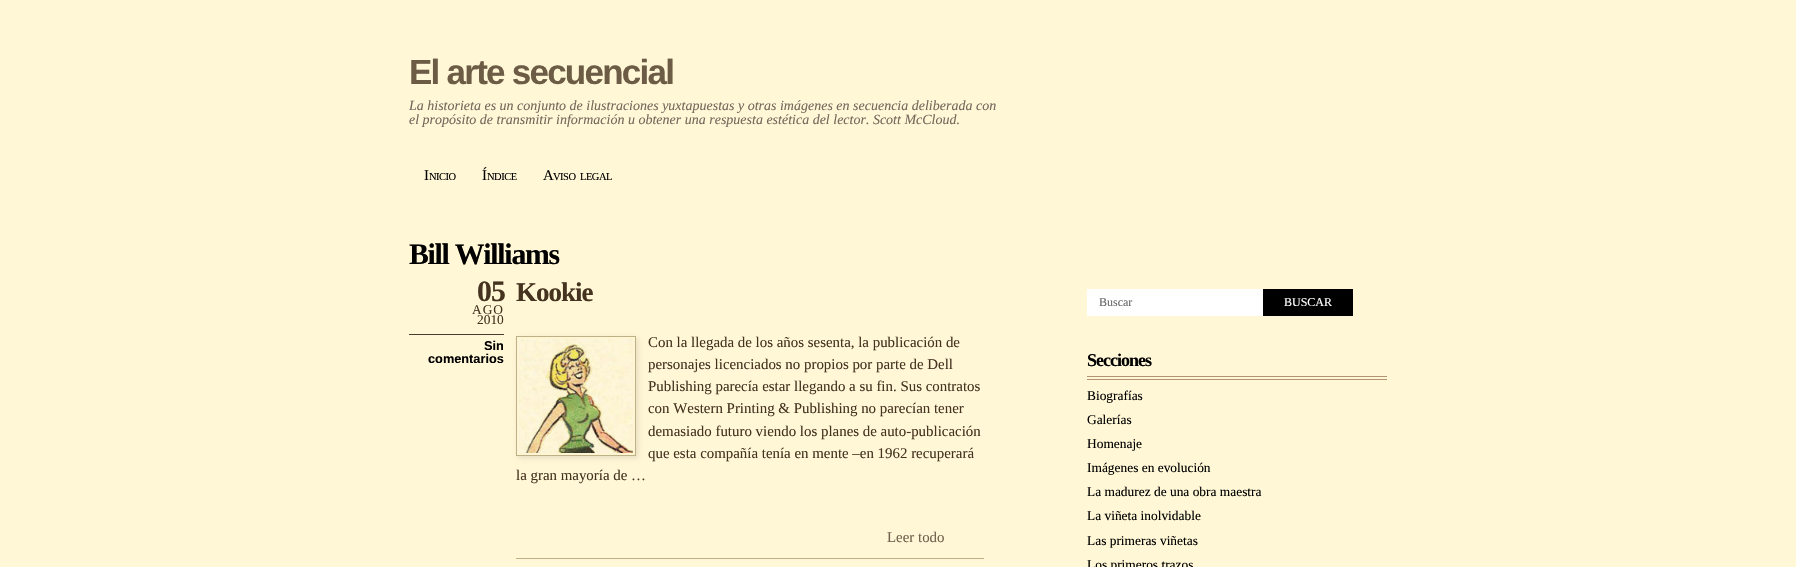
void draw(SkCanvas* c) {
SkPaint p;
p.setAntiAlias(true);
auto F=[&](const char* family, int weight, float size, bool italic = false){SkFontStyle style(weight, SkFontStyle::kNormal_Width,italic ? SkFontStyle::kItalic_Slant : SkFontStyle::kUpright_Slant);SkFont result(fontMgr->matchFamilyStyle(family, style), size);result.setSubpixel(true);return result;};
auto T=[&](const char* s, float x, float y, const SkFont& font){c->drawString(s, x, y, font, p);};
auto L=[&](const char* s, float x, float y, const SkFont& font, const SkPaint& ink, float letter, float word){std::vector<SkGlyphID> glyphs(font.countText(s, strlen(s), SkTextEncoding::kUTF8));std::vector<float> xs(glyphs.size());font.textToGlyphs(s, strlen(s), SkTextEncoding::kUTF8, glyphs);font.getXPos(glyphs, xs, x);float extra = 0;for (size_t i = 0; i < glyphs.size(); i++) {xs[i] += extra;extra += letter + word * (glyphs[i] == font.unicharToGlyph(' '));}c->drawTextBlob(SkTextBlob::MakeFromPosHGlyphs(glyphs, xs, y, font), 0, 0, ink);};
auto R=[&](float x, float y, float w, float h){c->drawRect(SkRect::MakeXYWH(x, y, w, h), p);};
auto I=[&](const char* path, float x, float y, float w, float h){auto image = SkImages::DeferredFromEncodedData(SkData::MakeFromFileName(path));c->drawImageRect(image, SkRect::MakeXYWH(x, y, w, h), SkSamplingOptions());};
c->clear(0xfffff7d6);
auto f1 = F("Liberation Sans",700,35);
p.setColor(0xff6c5c46);
L("El arte secuencial",409,84,f1,p,-1.75,0);
auto f2 = F("Liberation Serif",400,14,true);
p.setColor(0xff74685c);
T("La historieta es un conjunto de ilustraciones yuxtapuestas y otras imágenes en secuencia deliberada con",409,110,f2);
T("el propósito de transmitir información u obtener una respuesta estética del lector. Scott McCloud.",409,124,f2);
auto f3 = F("Liberation Serif",400,14.9);
p.setColor(0xff000000);
L("I",424,180,f3,p,-.5,0);
auto f4 = F("Liberation Serif",400,10.5);
L("NICIO",429,180,f4,p,-.5,0);
L("Í",482,180,f3,p,-.5,0);
L("NDICE",487,180,f4,p,-.5,0);
L("A",543,180,f3,p,-.5,0);
L("VISO",553,180,f4,p,-.5,0);
L("LEGAL",580,180,f4,p,-.5,0);
auto f5 = F("Liberation Serif",700,29.75);
L("Bill Williams",409,264,f5,p,-1.25,0);
p.setColor(0xff453320);
L("05",477,301,f5,p,-1,0);
auto f6 = F("Liberation Serif",400,13.4);
L("AGO",472,314,f6,p,1,0);
T("2010",477,324,f6);
p.setColor(0xff483f32);
R(409,334,95,1);
auto f7 = F("Liberation Sans",700,12.75);
p.setColor(0xff000000);
T("Sin",484,350,f7);
T("comentarios",428,363,f7);
auto f8 = F("Liberation Serif",700,27);
p.setColor(0xff453320);
L("Kookie",516,301,f8,p,-1,0);
p.setColor(0x1a000000);
p.setMaskFilter(SkMaskFilter::MakeBlur(kNormal_SkBlurStyle, 2.5));
c->drawRect(SkRect::MakeXYWH(518,338,120,120),p);
p.setMaskFilter(nullptr);
p.setColor(0xfffdf5d3);
c->drawRect(SkRect::MakeXYWH(516.5,336.5,119,119),p);
p.setStroke(true);
p.setStrokeWidth(1);
p.setColor(0xffbfb186);
c->drawRect(SkRect::MakeXYWH(516.5,336.5,119,119),p);
I("1.png",519,339,114,114);
p.setStroke(false);
p.setColor(0xff453320);
T("Con la llegada de los años sesenta, la publicación de",648,347,f3);
T("personajes licenciados no propios por parte de Dell",648,369,f3);
T("Publishing parecía estar llegando a su fin. Sus contratos",648,391,f3);
T("con Western Printing & Publishing no parecían tener",648,413,f3);
T("demasiado futuro viendo los planes de auto-publicación",648,436,f3);
T("que esta compañía tenía en mente –en 1962 recuperará",648,458,f3);
T("la gran mayoría de …",516,480,f3);
p.setColor(0xff70604c);
T("Leer todo",887,542,f3);
p.setColor(0xffbfb186);
R(516,558,468,1);
p.setColor(0xffffffff);
R(1087,289,176,27);
auto f9 = F("Liberation Serif",400,12);
p.setColor(0xff666666);
T("Buscar",1099,306,f9);
p.setColor(0xff000000);
R(1263,289,90,27);
p.setColor(0xffffffff);
T("BUSCAR",1284,306,f9);
p.setColor(0xffb09370);
R(1087,376,300,1);
R(1087,379,300,1);
auto f10 = F("Liberation Serif",700,18);
p.setColor(0xff000000);
L("Secciones",1087,366,f10,p,-1,0);
T("Biografías",1087,400,f6);
T("Galerías",1087,424,f6);
T("Homenaje",1087,448,f6);
T("Imágenes en evolución",1087,472,f6);
T("La madurez de una obra maestra",1087,496,f6);
T("La viñeta inolvidable",1087,520,f6);
T("Las primeras viñetas",1087,545,f6);
T("Los primeros trazos",1087,569,f6);
}
